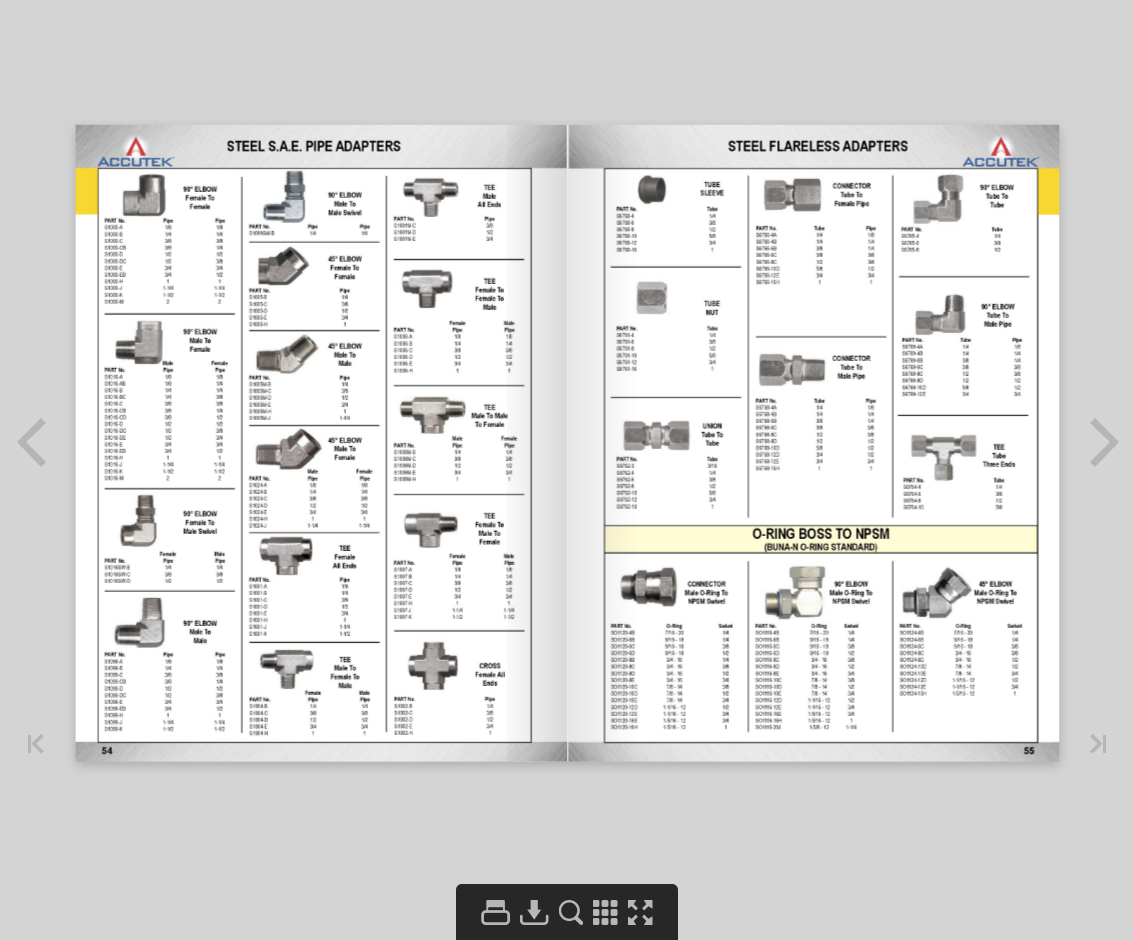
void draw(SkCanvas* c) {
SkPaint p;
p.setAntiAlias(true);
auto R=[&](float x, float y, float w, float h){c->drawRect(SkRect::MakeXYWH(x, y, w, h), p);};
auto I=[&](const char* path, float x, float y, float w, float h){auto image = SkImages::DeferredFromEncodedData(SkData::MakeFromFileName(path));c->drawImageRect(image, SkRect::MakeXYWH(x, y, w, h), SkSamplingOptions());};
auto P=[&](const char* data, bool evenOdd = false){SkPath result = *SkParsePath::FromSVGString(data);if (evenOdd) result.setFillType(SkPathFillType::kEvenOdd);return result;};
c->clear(0xffd4d4d4);
p.setColor(0xffb5b5b5);
c->drawPath(P("M17 442l24 25l5-5l-20-20l20-19l-5-5z"),p);
p.setColor(0xffaaaaaa);
p.setMaskFilter(SkMaskFilter::MakeBlur(kNormal_SkBlurStyle, 5.5));
c->drawRect(SkRect::MakeXYWH(76,129,983,636),p);
p.setMaskFilter(nullptr);
p.setColor(0xffffffff);
R(567,125,1,636);
I("1.png",75,124,493,638);
{
const SkColor colors[] = {0x00000000,0x26000000};
const float stops[] = {0,1};
const SkPoint ends[] = {{497,443}, {567,443}};
p.setShader(SkGradientShader::MakeLinear(ends, colors, stops, 2, SkTileMode::kClamp));
p.setAlpha(255);
}
R(507,125,61,636);
I("2.png",567,124,493,638);
p.setShader(nullptr);
p.setColor(0xffb5b5b5);
c->drawPath(P("M1119 442l-24 25l-5-5l20-20l-20-19l5-5z"),p);
I("3.png",28,734,16,20);
I("4.png",1090,734,16,20);
p.setColor(0xff272727);
c->drawPath(P("M462 884h210c3.5 0 6 2.5 6 6v50h-222v-50c0-3.5 2.5-6 6-6z"),p);
I("5.png",481,900,29,25);
I("6.png",520,900,29,25);
I("7.png",559,900,24,25);
I("8.png",593,900,25,25);
I("9.png",628,900,25,25);
}
